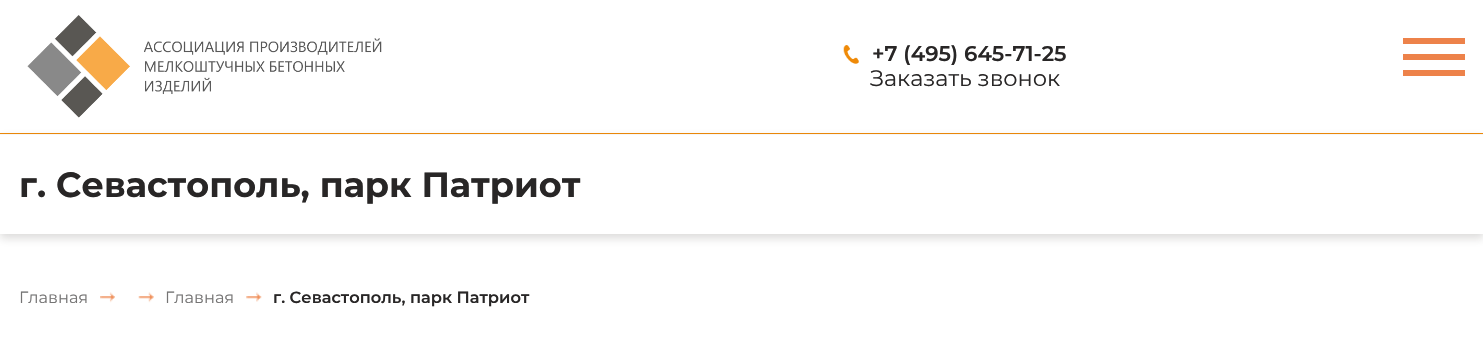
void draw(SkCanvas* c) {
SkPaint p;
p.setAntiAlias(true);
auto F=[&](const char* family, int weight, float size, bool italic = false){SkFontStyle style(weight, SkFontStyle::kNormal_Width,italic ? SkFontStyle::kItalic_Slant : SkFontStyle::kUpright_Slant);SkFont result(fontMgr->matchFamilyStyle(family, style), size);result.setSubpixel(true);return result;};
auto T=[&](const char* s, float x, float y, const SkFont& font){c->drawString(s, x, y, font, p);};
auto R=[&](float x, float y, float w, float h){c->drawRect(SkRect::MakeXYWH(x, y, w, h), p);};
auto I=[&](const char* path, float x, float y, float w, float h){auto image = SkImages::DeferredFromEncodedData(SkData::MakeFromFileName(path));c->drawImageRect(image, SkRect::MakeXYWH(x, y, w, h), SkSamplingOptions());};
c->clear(0xffffffff);
p.setColor(0xffef8a08);
R(0,133,1483,1);
I("1.png",27,15,355,103);
I("2.png",843,45,16,19);
auto f1 = F("Montserrat",600,21.25);
p.setColor(0xff282626);
T("+7 (495) 645-71-25",872,61,f1);
auto f2 = F("Montserrat",400,22.5);
T("Заказать звонок",870,86,f2);
p.setColor(0xffed824a);
R(1403,38,62,6);
R(1403,54,62,6);
R(1403,70,62,6);
p.setColor(0x291a130e);
p.setMaskFilter(SkMaskFilter::MakeBlur(kNormal_SkBlurStyle, 4.5));
c->drawRect(SkRect::MakeXYWH(0,138,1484,100),p);
p.setMaskFilter(nullptr);
p.setColor(0xffffffff);
R(0,135,1483,99);
p.setColor(0xfff6f6f6);
R(0,134,1483,1);
auto f3 = F("Montserrat",700,35);
p.setColor(0xff282626);
T("г. Севастополь, парк Патриот",19,197,f3);
auto f4 = F("Montserrat",400,16.25);
p.setColor(0xff757474);
T("Главная",19,303,f4);
I("3.png",100,292,15,11);
I("4.png",138,292,16,11);
T("Главная",165,303,f4);
I("5.png",246,292,16,10);
auto f5 = F("Montserrat",600,16.25);
p.setColor(0xff282626);
T("г. Севастополь, парк Патриот",273,303,f5);
}
